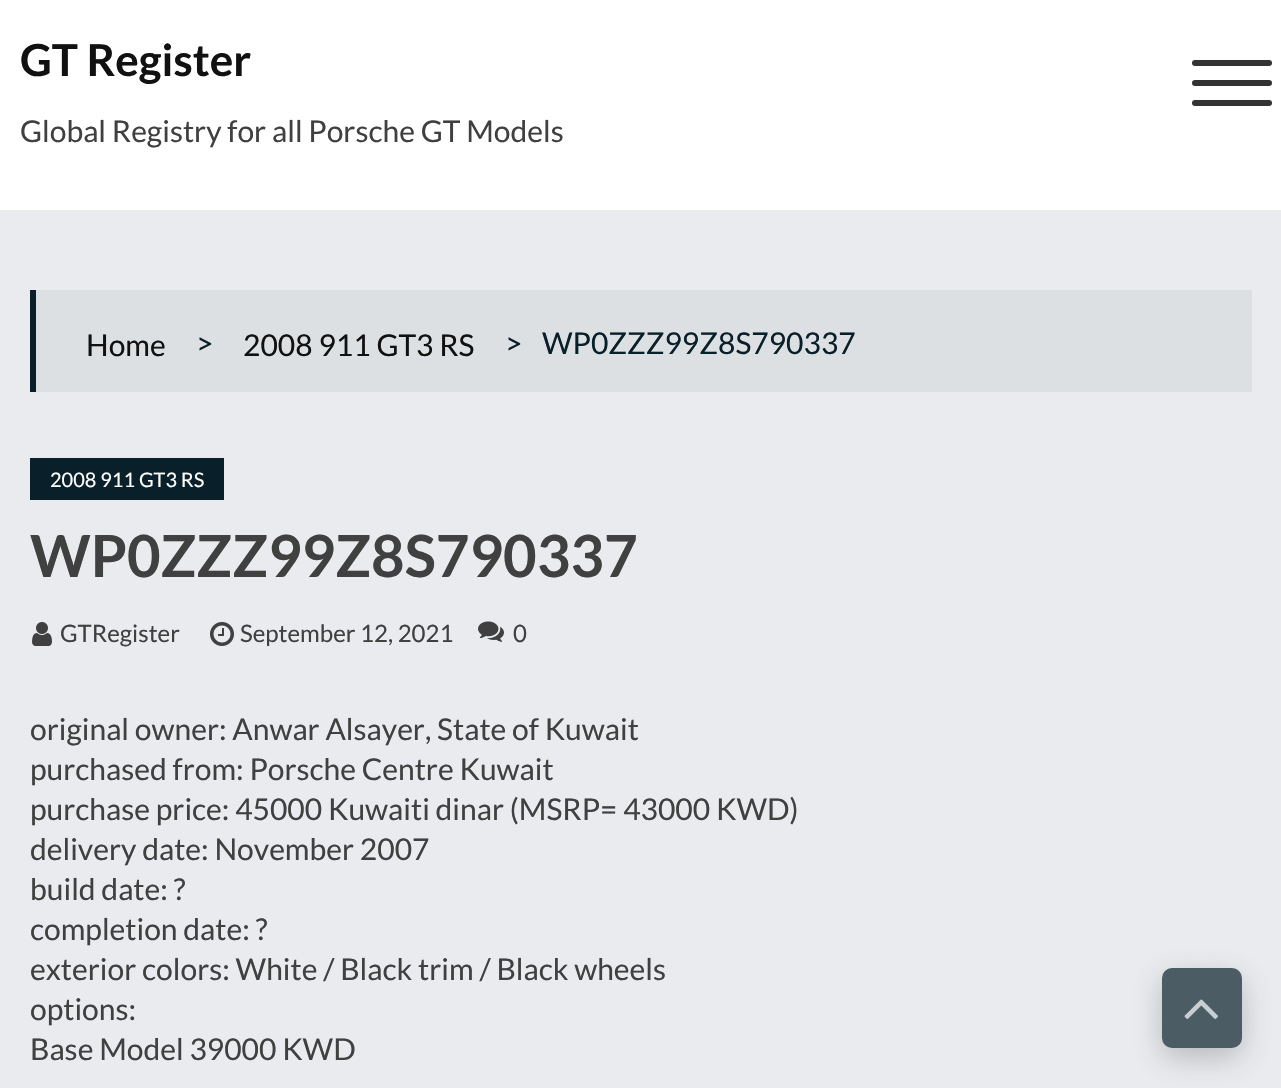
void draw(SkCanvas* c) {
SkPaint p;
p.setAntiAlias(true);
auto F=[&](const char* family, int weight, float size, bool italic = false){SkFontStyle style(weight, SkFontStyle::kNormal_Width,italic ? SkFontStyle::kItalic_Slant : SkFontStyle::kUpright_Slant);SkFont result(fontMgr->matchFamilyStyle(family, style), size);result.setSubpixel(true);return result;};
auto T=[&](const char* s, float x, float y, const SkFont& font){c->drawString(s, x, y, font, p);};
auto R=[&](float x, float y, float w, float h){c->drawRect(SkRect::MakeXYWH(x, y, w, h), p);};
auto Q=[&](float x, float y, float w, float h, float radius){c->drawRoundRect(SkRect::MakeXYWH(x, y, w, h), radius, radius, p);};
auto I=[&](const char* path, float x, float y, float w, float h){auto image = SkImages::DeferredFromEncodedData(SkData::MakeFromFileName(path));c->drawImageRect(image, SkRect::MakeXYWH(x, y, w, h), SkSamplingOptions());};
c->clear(0xffe9ebee);
p.setColor(0xffffffff);
R(0,0,1281,210);
auto f1 = F("Lato",700,44);
p.setColor(0xff111111);
T("GT Register",20,76,f1);
auto f2 = F("Lato",400,30);
p.setColor(0xff404040);
T("Global Registry for all Porsche GT Models",20,142,f2);
p.setColor(0xff333333);
Q(1192,80,80,6,3);
Q(1192,60,80,6,3);
Q(1192,100,80,6,3);
p.setColor(0xffdde0e2);
R(36,290,1216,102);
p.setColor(0xff091f29);
R(30,290,6,102);
p.setColor(0xff111111);
T("Home",86,356,f2);
p.setColor(0xff091f29);
T(">",196,354,f2);
p.setColor(0xff111111);
T("2008 911 GT3 RS",243,356,f2);
p.setColor(0xff091f29);
T(">",505,354,f2);
T("WP0ZZZ99Z8S790337",542,354,f2);
R(30,458,194,42);
auto f3 = F("Lato",400,20);
p.setColor(0xffffffff);
T("2008 911 GT3 RS",50,487,f3);
auto f4 = F("Lato",700,58);
p.setColor(0xff404040);
T("WP0ZZZ99Z8S790337",30,577,f4);
I("1.png",32,622,20,24);
auto f5 = F("Lato",400,24);
T("GTRegister",60,642,f5);
I("2.png",210,622,24,24);
T("September 12, 2021",240,642,f5);
I("3.png",478,621,26,21);
T("0",513,642,f5);
T("original owner: Anwar Alsayer, State of Kuwait",30,740,f2);
T("purchased from: Porsche Centre Kuwait",30,780,f2);
T("purchase price: 45000 Kuwaiti dinar (MSRP= 43000 KWD)",30,820,f2);
T("delivery date: November 2007",30,860,f2);
T("build date: ?",30,900,f2);
T("completion date: ?",30,940,f2);
T("exterior colors: White / Black trim / Black wheels",30,980,f2);
T("options:",30,1020,f2);
T("Base Model 39000 KWD",30,1060,f2);
p.setColor(0x4d464747);
p.setMaskFilter(SkMaskFilter::MakeBlur(kNormal_SkBlurStyle, 15));
c->drawRoundRect(SkRect::MakeXYWH(1162,978,80,80),10,10,p);
p.setMaskFilter(nullptr);
p.setColor(0xff4c5c64);
Q(1162,968,80,80,10);
I("4.png",1184,999,34,20);
}
